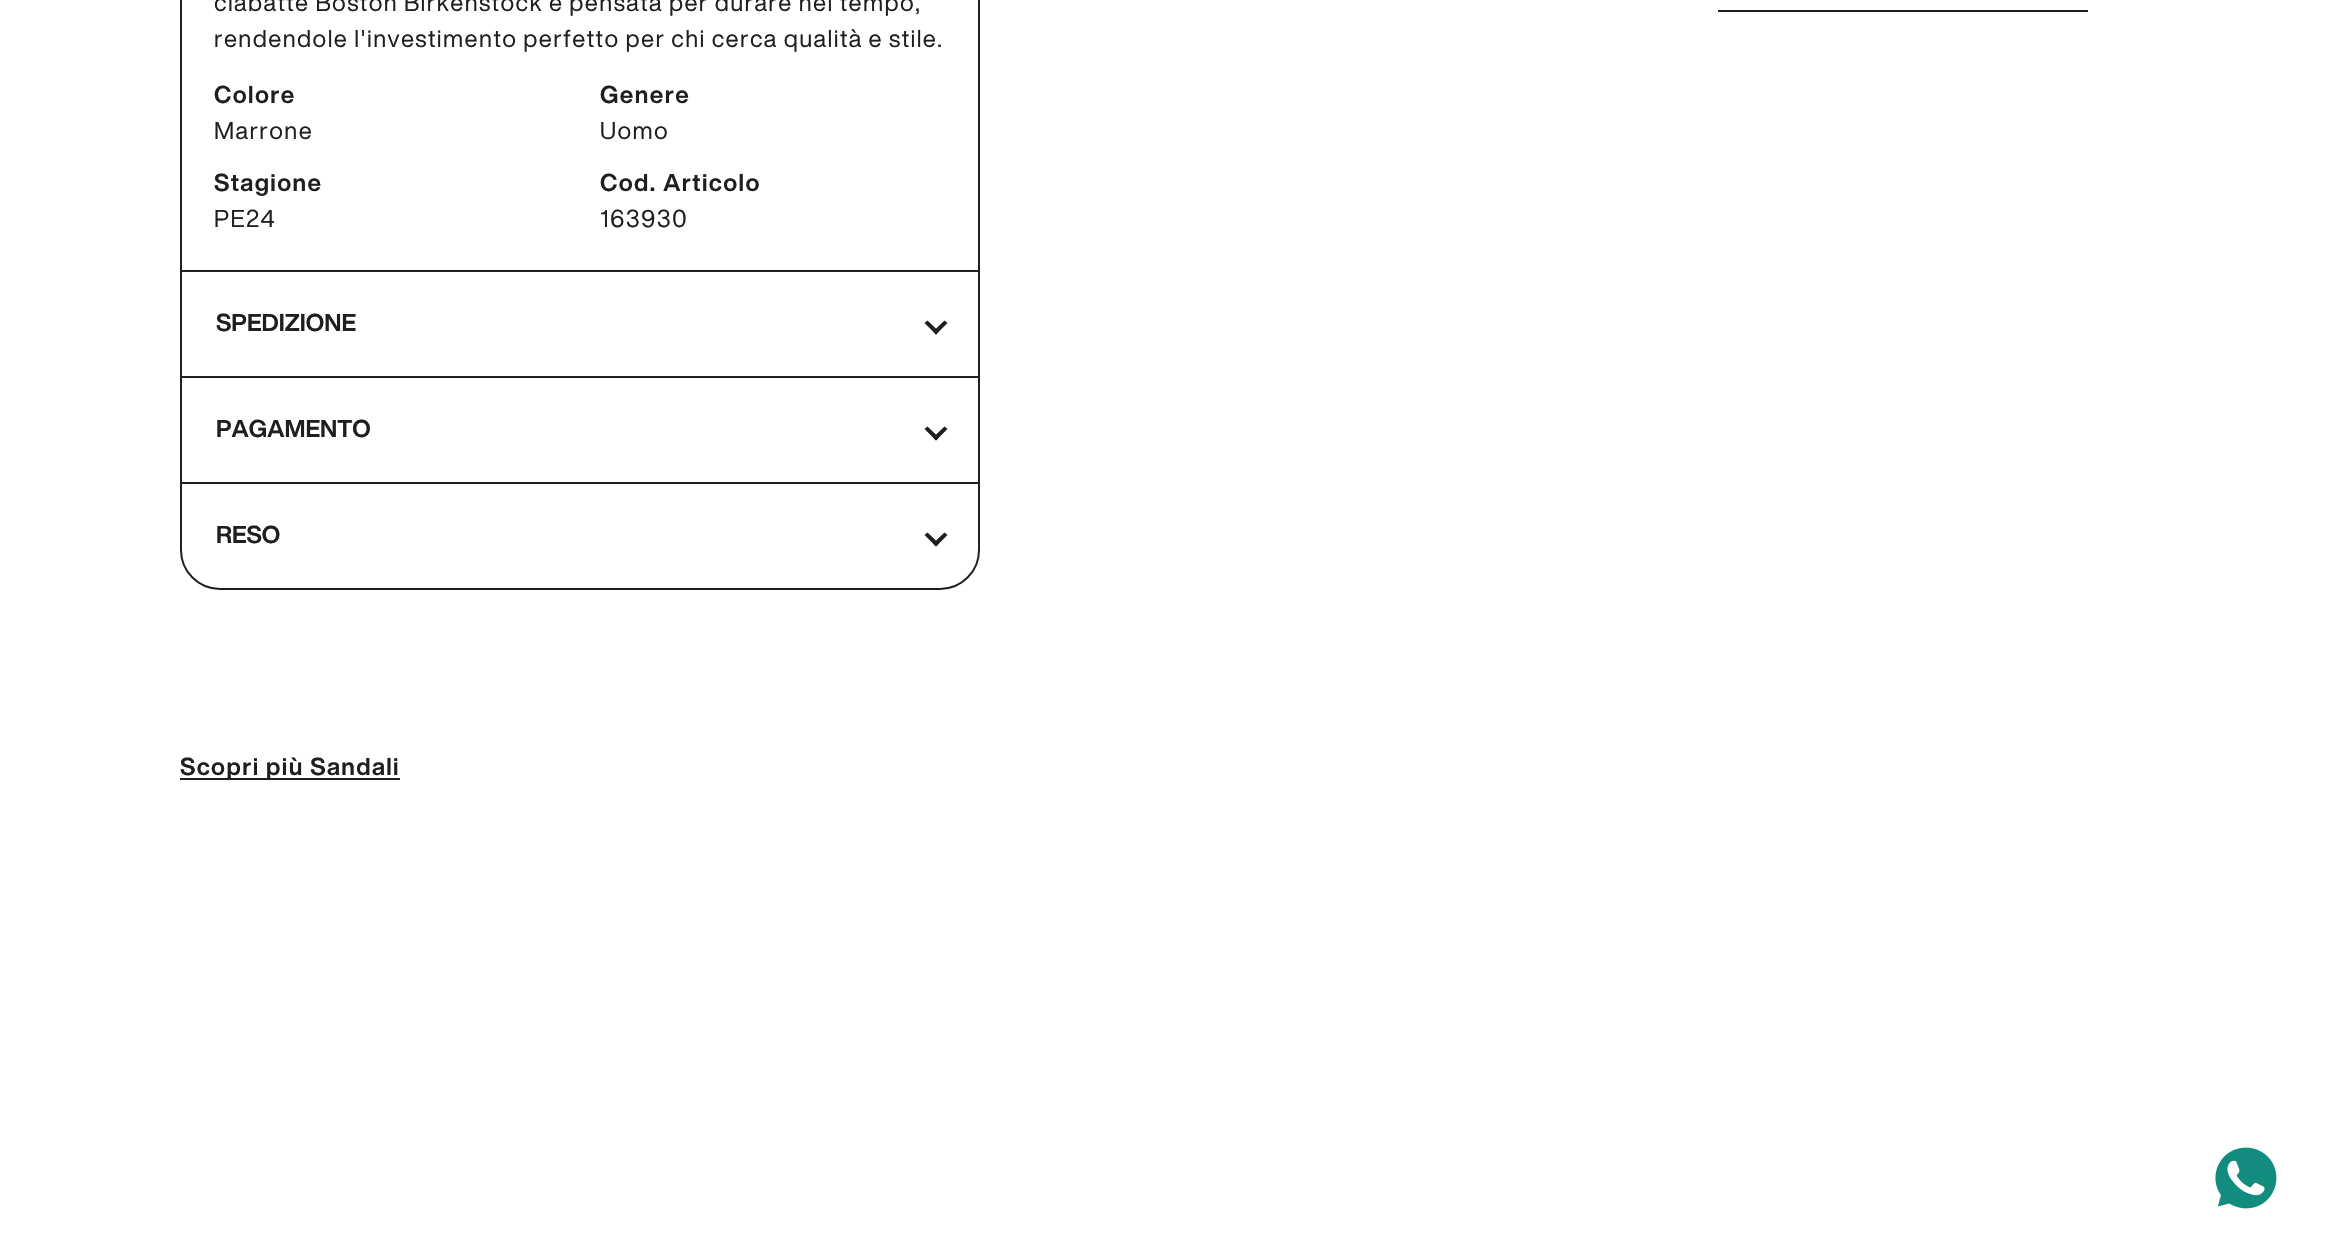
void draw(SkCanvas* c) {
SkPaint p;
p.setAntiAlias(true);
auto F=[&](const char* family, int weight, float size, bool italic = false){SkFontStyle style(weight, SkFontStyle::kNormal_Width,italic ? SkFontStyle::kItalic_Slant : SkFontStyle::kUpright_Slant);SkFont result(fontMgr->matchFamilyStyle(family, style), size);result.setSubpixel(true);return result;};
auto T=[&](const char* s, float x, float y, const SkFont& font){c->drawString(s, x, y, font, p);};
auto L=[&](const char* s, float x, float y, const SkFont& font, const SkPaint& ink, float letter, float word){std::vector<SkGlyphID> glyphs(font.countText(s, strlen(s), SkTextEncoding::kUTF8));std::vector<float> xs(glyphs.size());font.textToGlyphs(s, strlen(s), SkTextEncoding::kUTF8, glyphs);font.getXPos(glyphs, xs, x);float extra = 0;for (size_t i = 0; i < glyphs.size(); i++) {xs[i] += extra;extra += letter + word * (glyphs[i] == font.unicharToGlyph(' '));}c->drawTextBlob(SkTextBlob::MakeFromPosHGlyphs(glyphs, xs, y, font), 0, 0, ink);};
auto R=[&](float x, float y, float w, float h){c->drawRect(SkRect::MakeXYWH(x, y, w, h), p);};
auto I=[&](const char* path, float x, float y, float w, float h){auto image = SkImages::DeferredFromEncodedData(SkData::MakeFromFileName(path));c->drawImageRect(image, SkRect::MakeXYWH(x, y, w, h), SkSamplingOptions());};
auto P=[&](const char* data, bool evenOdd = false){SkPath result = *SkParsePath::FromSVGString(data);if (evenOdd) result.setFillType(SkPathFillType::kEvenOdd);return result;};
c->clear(0xffffffff);
p.setStroke(true);
p.setStrokeWidth(2);
p.setColor(0xff1f1f1f);
c->drawRoundRect(SkRect::MakeXYWH(181,-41,798,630),39,39,p);
p.setStroke(false);
R(182,270,796,2);
auto f1 = F("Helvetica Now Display",400,24);
L("ciabatte Boston Birkenstock è pensata per durare nel tempo,",214,11,f1,p,1.4,0);
L("rendendole l'investimento perfetto per chi cerca qualità e stile.",214,47,f1,p,1.4,0);
auto f2 = F("Helvetica Now Display",700,24);
L("Colore",214,103,f2,p,1.4,0);
L("Marrone",214,139,f1,p,1.4,0);
L("Genere",600,103,f2,p,1.4,0);
L("Uomo",600,139,f1,p,1.4,0);
L("Stagione",214,191,f2,p,1.4,0);
L("PE24",214,227,f1,p,1.4,0);
L("Cod. Articolo",600,191,f2,p,1.4,0);
L("163930",600,227,f1,p,1.4,0);
R(182,376,796,2);
T("SPEDIZIONE",216,331,f2);
c->drawPath(P("M933 331.5l11.5-11l3 2.5l-11.5 11.5z"),p);
c->drawPath(P("M924.5 323l3-2.5l11.5 11l-3 3z"),p);
R(182,482,796,2);
T("PAGAMENTO",216,437,f2);
c->drawPath(P("M933 437.5l11.5-11l3 2.5l-11.5 11.5z"),p);
c->drawPath(P("M924.5 429l3-2.5l11.5 11l-3 3z"),p);
T("RESO",216,543,f2);
c->drawPath(P("M933 543.5l11.5-11l3 2.5l-11.5 11.5z"),p);
c->drawPath(P("M924.5 535l3-2.5l11.5 11l-3 3z"),p);
R(180,778,220,2);
L("Scopri più Sandali",180,775,f2,p,1.4,0);
R(1718,10,370,2);
I("1.png",2215,1147,62,62);
}
